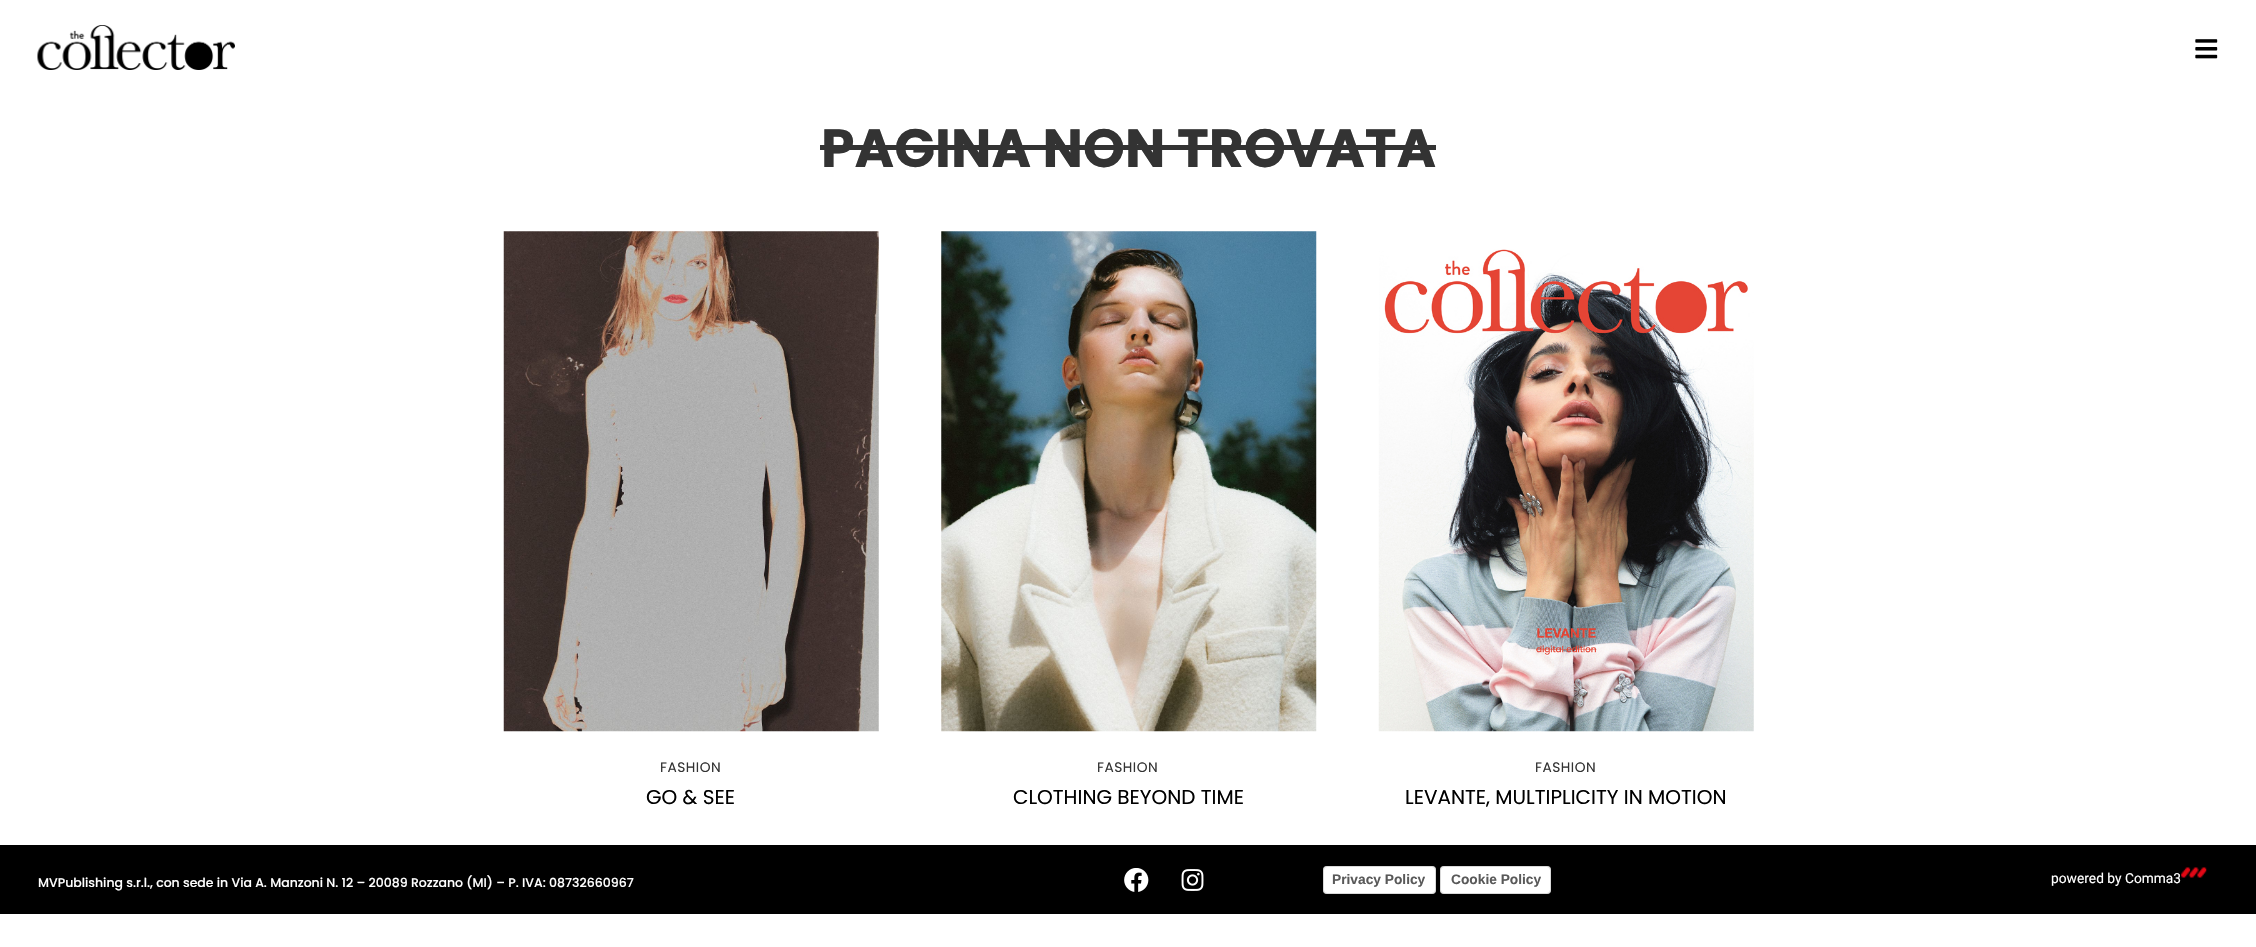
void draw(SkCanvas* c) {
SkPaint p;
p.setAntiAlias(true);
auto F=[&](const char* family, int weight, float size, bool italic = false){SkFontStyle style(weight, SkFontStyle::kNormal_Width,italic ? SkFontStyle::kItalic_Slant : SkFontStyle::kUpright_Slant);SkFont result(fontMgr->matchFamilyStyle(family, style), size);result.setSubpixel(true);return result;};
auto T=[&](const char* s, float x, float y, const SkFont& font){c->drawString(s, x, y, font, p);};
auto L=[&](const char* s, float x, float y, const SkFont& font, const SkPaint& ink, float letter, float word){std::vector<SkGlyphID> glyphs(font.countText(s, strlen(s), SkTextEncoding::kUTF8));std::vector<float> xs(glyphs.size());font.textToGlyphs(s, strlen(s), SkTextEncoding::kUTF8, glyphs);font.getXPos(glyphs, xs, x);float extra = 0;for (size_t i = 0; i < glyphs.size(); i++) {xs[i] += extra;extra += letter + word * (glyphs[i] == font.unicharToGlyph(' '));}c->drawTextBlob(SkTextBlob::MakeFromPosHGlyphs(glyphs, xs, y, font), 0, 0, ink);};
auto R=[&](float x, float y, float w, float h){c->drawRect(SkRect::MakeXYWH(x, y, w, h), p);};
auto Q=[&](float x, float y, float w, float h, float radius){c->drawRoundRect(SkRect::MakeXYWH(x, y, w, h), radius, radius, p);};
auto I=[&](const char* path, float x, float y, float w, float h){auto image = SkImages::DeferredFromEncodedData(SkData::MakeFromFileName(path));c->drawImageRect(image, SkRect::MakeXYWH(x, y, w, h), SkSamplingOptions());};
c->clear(0xffffffff);
I("1.png",37,25,198,45);
I("2.png",2195,39,23,20);
auto f1 = F("Poppins",700,53.75);
p.setColor(0xff333333);
T("PAGINA NON TROVATA",821,167,f1);
R(820,145,616,5);
I("3.png",503,231,376,501);
auto f2 = F("Poppins",400,13.75);
L("FASHION",660,772,f2,p,.5,0);
auto f3 = F("Poppins",400,20);
p.setColor(0xff000000);
T("GO & SEE",646,804,f3);
I("4.png",941,231,376,501);
p.setColor(0xff333333);
L("FASHION",1097,772,f2,p,.5,0);
p.setColor(0xff000000);
T("CLOTHING BEYOND TIME",1013,804,f3);
I("5.png",1378,249,376,483);
p.setColor(0xff333333);
L("FASHION",1535,772,f2,p,.5,0);
p.setColor(0xff000000);
T("LEVANTE, MULTIPLICITY IN MOTION",1405,804,f3);
R(0,845,2256,69);
auto f4 = F("Poppins",500,12.5);
p.setColor(0xffffffff);
T("MVPublishing s.r.l., con sede in Via A. Manzoni N. 12 – 20089 Rozzano (MI) – P. IVA: 08732660967",38,887,f4);
I("6.png",1124,868,25,24);
I("7.png",1181,869,23,22);
Q(1323,866,113,28,4);
p.setStroke(true);
p.setStrokeWidth(1);
p.setColor(0x26000000);
c->drawRoundRect(SkRect::MakeXYWH(1323.5,866.5,112,27),3.5,3.5,p);
auto f5 = F("Liberation Sans",700,13.75);
p.setStroke(false);
p.setColor(0xff595959);
T("Privacy Policy",1332,884,f5);
p.setColor(0xffffffff);
Q(1440,866,111,28,4);
p.setStroke(true);
p.setColor(0x26000000);
c->drawRoundRect(SkRect::MakeXYWH(1440.5,866.5,110,27),3.5,3.5,p);
p.setStroke(false);
p.setColor(0xff595959);
T("Cookie Policy",1451,884,f5);
auto f6 = F("Roboto",400,13.75);
p.setColor(0xffffffff);
T("powered by Comma3",2051,883,f6);
I("8.png",2181,867,26,11);
}
